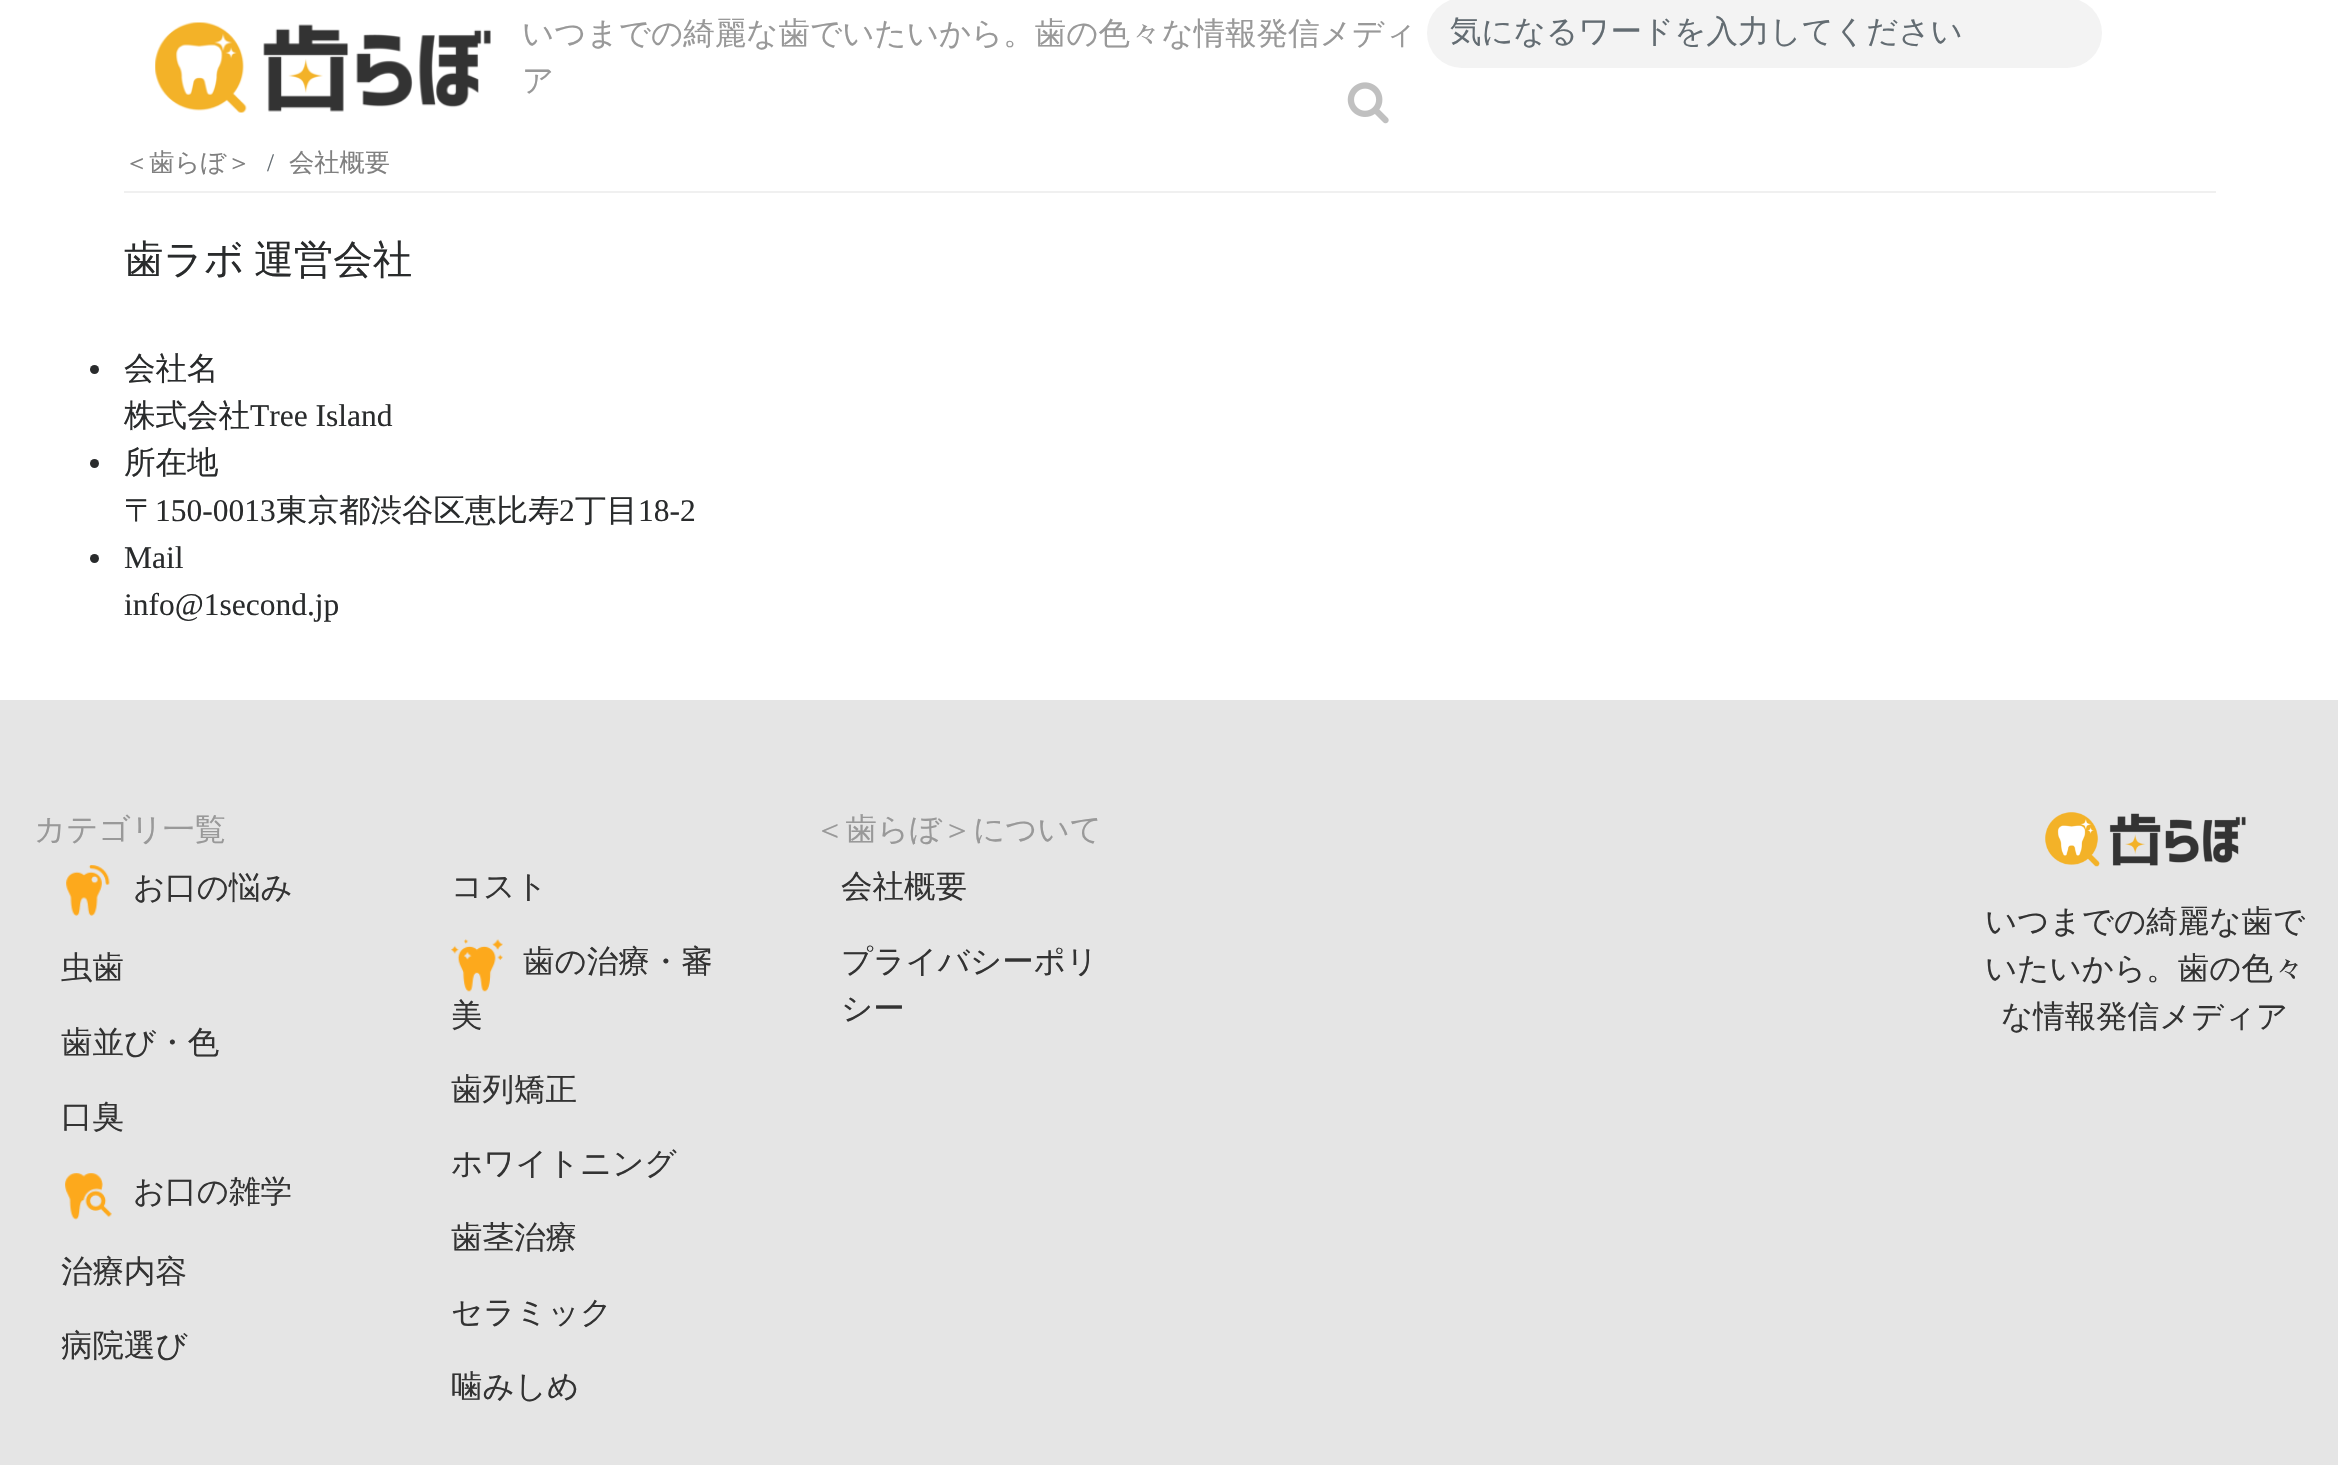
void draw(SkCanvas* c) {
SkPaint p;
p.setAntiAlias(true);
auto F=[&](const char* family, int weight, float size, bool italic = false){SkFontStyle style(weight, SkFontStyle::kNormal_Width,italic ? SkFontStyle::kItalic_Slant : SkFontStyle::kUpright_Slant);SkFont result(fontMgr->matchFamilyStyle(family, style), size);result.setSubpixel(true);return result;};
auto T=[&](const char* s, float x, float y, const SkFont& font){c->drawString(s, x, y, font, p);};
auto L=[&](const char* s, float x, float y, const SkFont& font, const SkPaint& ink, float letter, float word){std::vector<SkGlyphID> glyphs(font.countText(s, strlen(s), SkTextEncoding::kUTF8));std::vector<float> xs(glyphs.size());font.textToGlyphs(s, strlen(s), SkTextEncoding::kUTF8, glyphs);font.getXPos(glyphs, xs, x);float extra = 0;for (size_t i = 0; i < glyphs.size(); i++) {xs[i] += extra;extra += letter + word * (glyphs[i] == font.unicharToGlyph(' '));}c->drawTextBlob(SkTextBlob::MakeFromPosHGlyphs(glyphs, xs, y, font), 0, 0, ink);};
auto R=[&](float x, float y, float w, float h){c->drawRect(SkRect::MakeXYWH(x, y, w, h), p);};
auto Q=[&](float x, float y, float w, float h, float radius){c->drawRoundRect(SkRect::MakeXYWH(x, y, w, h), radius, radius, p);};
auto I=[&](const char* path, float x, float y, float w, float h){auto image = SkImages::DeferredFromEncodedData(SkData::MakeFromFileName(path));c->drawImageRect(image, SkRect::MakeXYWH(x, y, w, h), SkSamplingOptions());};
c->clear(0xffffffff);
I("1.png",155,22,336,91);
auto f1 = F("WenQuanYi Zen Hei",500,31.5);
p.setColor(0xff999999);
T("いつまでの綺麗な歯でいたいから。歯の色々な情報発信メディ",522,44,f1);
T("ア",522,91,f1);
p.setColor(0xfff3f3f3);
Q(1427,-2,675,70,35);
p.setColor(0xff636c72);
T("気になるワードを入力してください",1450,42,f1);
I("2.png",1347,82,42,42);
p.setColor(0xfff0f0f0);
R(124,191,2092,2);
auto f2 = F("WenQuanYi Zen Hei",500,25.25);
p.setColor(0xff808080);
T("＜歯らぼ＞",124,171,f2);
auto f3 = F("Liberation Serif",400,25.25);
p.setColor(0xff636c72);
T("/",267,171,f3);
p.setColor(0xff808080);
T("会社概要",289,171,f2);
auto f4 = F("WenQuanYi Zen Hei",500,39.5);
p.setColor(0xff292b2c);
L("歯ラボ 運営会社",124,273,f4,p,0,-2);
c->drawCircle(94.5,369.5,4.5,p);
T("会社名",124,379,f1);
T("株式会社",124,426,f1);
auto f5 = F("Liberation Serif",400,31.5);
T("Tree Island",250,426,f5);
c->drawCircle(94.5,463.5,4.5,p);
T("所在地",124,473,f1);
T("〒",124,521,f1);
T("150-0013",155,521,f5);
T("東京都渋谷区恵比寿",276,521,f1);
T("2",559,521,f5);
T("丁目",575,521,f1);
T("18-2",638,521,f5);
c->drawCircle(94.5,558.5,4.5,p);
T("Mail",124,568,f5);
T("info@1second.jp",124,615,f5);
p.setColor(0xffe5e5e5);
R(0,700,2338,765);
p.setColor(0xff999999);
T("カテゴリ一覧",34,840,f1);
I("3.png",66,865,44,51);
p.setColor(0xff333333);
T("お口の悩み",133,898,f1);
T("虫歯",61,978,f1);
T("歯並び・色",61,1053,f1);
T("口臭",61,1127,f1);
I("4.png",65,1173,47,47);
T("お口の雑学",133,1202,f1);
T("治療内容",61,1282,f1);
T("病院選び",61,1356,f1);
T("コスト",451,897,f1);
I("5.png",451,939,52,53);
T("歯の治療・審",523,972,f1);
T("美",451,1026,f1);
T("歯列矯正",451,1100,f1);
T("ホワイトニング",451,1174,f1);
T("歯茎治療",451,1248,f1);
T("セラミック",451,1323,f1);
T("噛みしめ",451,1397,f1);
p.setColor(0xff999999);
T("＜歯らぼ＞について",814,840,f1);
p.setColor(0xff333333);
T("会社概要",841,897,f1);
T("プライバシーポリ",841,972,f1);
T("シー",841,1019,f1);
I("6.png",2045,812,201,55);
T("いつまでの綺麗な歯で",1985,932,f1);
T("いたいから。歯の色々",1985,979,f1);
T("な情報発信メディア",2001,1027,f1);
}
